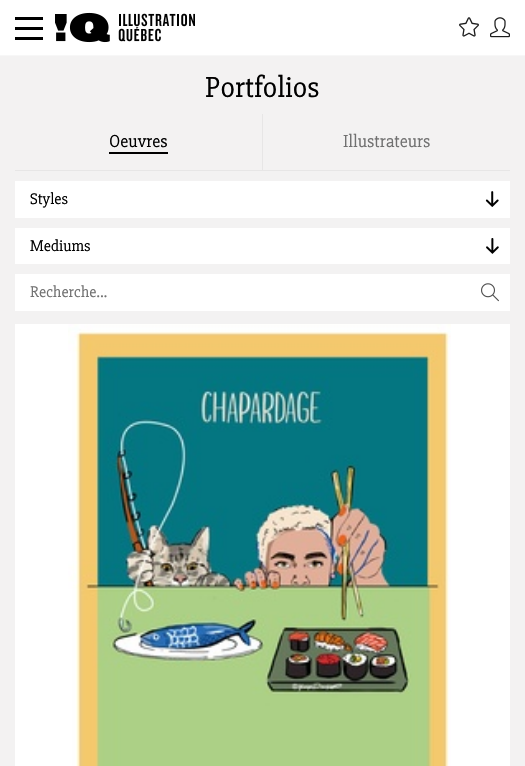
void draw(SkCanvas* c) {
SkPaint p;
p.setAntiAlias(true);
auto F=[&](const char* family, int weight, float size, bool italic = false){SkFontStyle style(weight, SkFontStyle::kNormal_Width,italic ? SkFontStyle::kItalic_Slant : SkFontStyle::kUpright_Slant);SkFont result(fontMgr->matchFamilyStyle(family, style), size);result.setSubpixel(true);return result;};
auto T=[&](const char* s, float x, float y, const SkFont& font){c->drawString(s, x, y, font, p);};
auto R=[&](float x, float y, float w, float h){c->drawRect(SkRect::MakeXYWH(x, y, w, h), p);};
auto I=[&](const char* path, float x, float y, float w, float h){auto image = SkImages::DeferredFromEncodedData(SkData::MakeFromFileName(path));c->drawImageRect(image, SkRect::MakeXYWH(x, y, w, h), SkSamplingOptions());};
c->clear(0xfff3f2f2);
p.setColor(0xffffffff);
R(0,0,525,55);
p.setColor(0xfff7f7f7);
R(0,55,525,1);
p.setColor(0xff000000);
R(15,27,28,3);
R(15,17,28,3);
R(15,37,28,3);
I("1.png",55,12,140,31);
I("2.png",459,17,20,20);
I("3.png",490,17,20,21);
auto f1 = F("Slabo 27px",400,30);
T("Portfolios",205,97,f1);
p.setColor(0xffe7e6e6);
R(15,170,495,1);
R(262,114,1,56);
auto f2 = F("Slabo 27px",400,18);
p.setColor(0xff000000);
T("Oeuvres",109,147,f2);
R(109,152,59,2);
p.setColor(0xff717171);
T("Illustrateurs",343,147,f2);
p.setColor(0xffffffff);
R(15,181,495,37);
auto f3 = F("Slabo 27px",400,16);
p.setColor(0xff000000);
T("Styles",30,204,f3);
I("4.png",485,191,14,16);
p.setColor(0xffffffff);
R(15,228,495,36);
p.setColor(0xff000000);
T("Mediums",30,251,f3);
I("5.png",486,238,13,16);
p.setColor(0xffffffff);
R(15,274,495,37);
p.setColor(0xff717171);
T("Recherche...",30,297,f3);
I("6.png",481,283,18,19);
p.setColor(0xffffffff);
R(15,324,495,442);
I("7.png",68,324,383,442);
}
